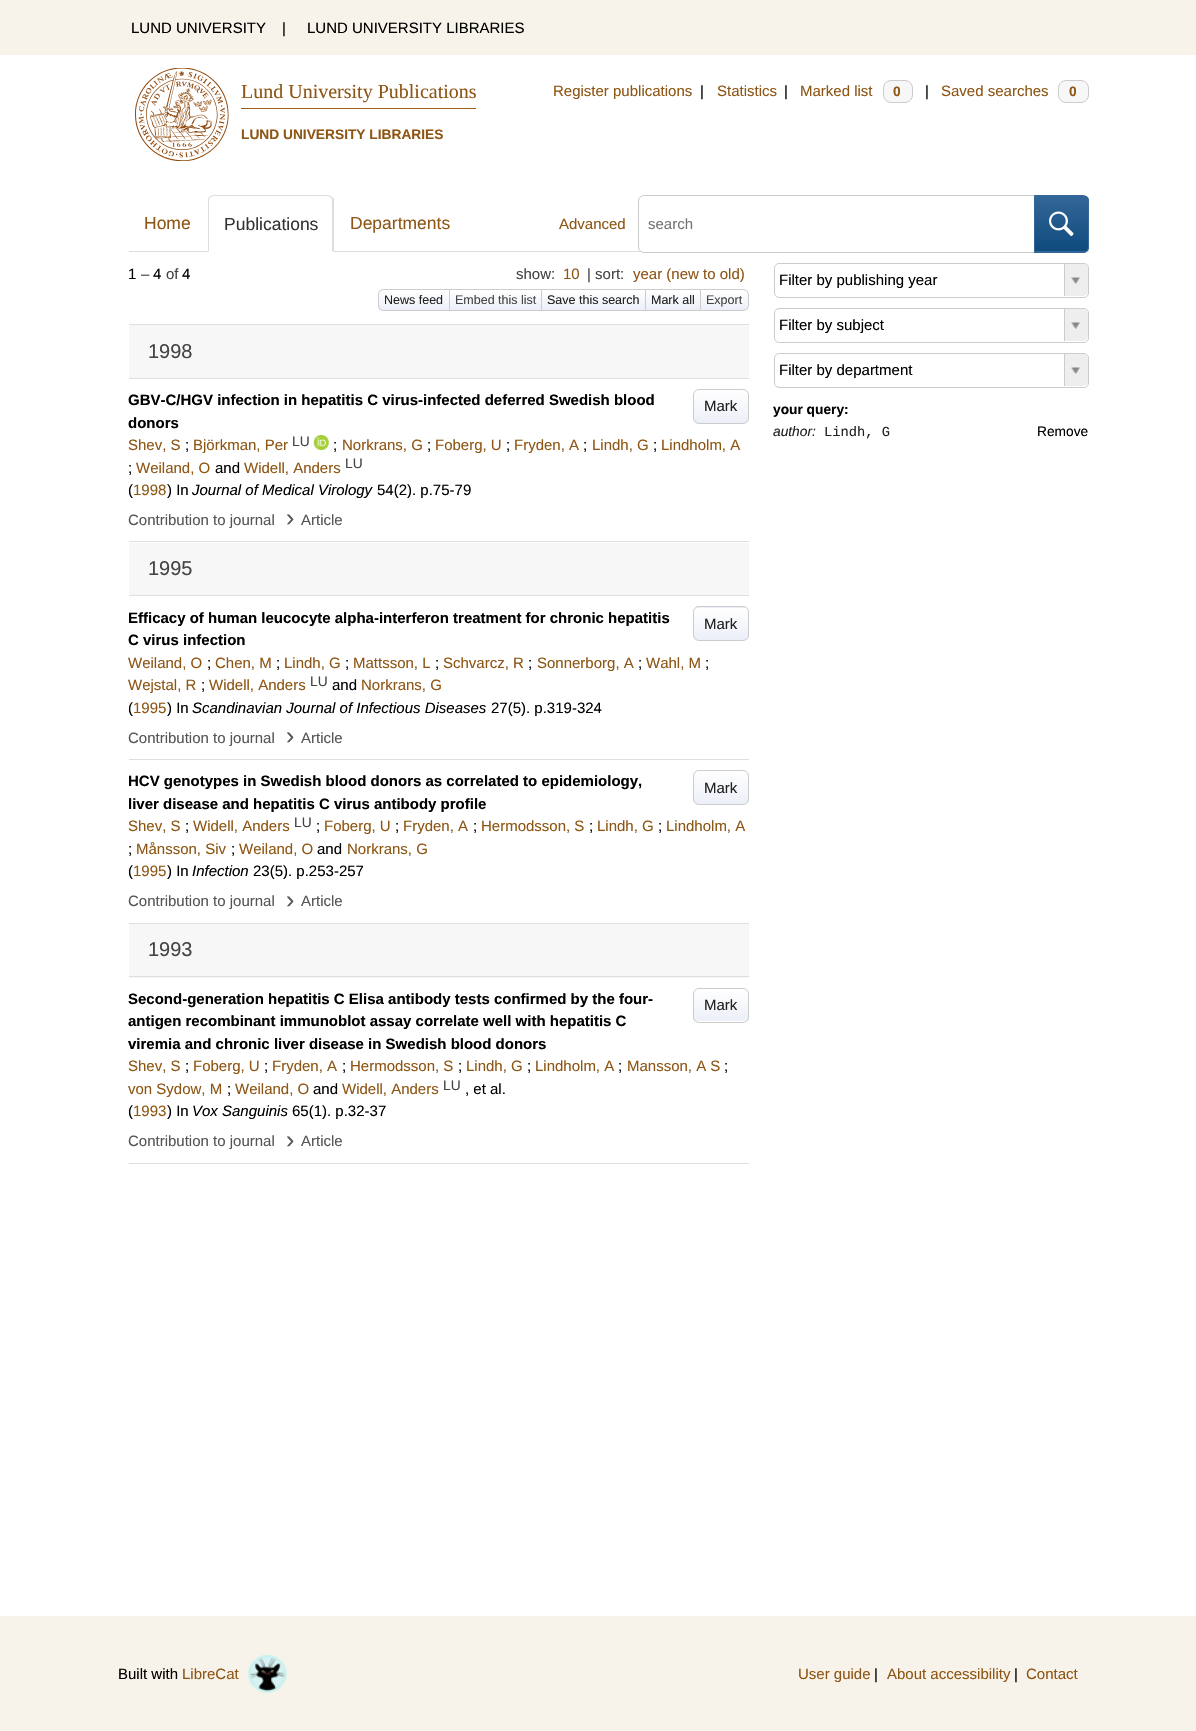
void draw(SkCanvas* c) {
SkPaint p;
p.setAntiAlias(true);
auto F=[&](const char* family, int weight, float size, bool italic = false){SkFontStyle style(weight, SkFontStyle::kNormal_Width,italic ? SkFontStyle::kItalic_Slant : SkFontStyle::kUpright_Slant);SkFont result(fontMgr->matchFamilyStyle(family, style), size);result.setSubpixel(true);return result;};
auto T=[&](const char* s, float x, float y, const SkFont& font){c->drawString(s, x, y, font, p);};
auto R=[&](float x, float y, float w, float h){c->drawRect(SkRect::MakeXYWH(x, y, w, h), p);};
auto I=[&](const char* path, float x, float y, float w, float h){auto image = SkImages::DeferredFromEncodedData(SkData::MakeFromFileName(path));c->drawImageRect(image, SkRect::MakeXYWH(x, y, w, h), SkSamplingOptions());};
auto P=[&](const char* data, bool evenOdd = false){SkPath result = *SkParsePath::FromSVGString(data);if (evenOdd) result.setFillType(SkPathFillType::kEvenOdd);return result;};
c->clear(0xffffffff);
p.setColor(0xfff8f3ea);
R(0,0,1196,55);
auto f1 = F("Liberation Sans",400,15);
p.setColor(0xff000000);
T("LUND UNIVERSITY",131,33,f1);
T("|",282,33,f1);
T("LUND UNIVERSITY LIBRARIES",307,33,f1);
I("1.png",135,68,94,93);
auto f2 = F("Liberation Serif",400,20);
p.setColor(0xff8e5614);
T("Lund University Publications",241,98,f2);
p.setColor(0xff9c6114);
R(241,108,235,1);
auto f3 = F("Liberation Sans",700,13.75);
p.setColor(0xff8e5614);
T("LUND UNIVERSITY LIBRARIES",241,139,f3);
T("Register publications",553,96,f1);
p.setColor(0xff000000);
T("|",700,96,f1);
p.setColor(0xff8e5614);
T("Statistics",717,96,f1);
p.setColor(0xff000000);
T("|",784,96,f1);
p.setColor(0xff8e5614);
T("Marked list",800,96,f1);
p.setColor(0xfff7f7f7);
c->drawRoundRect(SkRect::MakeXYWH(883.5,80.5,29,22),7.5,7.5,p);
p.setStroke(true);
p.setStrokeWidth(1);
p.setColor(0xffcccccc);
c->drawRoundRect(SkRect::MakeXYWH(883.5,80.5,29,22),7.5,7.5,p);
p.setStroke(false);
p.setColor(0xff8e5614);
T("0",893,96,f3);
p.setColor(0xff000000);
T("|",925,96,f1);
p.setColor(0xff8e5614);
T("Saved searches",941,96,f1);
p.setColor(0xfff7f7f7);
c->drawRoundRect(SkRect::MakeXYWH(1058.5,80.5,30,22),7.5,7.5,p);
p.setStroke(true);
p.setColor(0xffcccccc);
c->drawRoundRect(SkRect::MakeXYWH(1058.5,80.5,30,22),7.5,7.5,p);
p.setStroke(false);
p.setColor(0xff8e5614);
T("0",1069,96,f3);
p.setColor(0xffdddddd);
R(129,251,960,1);
auto f4 = F("Liberation Sans",400,17.5);
p.setColor(0xff8e5614);
T("Home",144,229,f4);
p.setColor(0xffffffff);
c->drawPath(P("M214 195h114c3.5 0 6 2.5 6 6v52h-126v-52c0-3.5 2.5-6 6-6z"),p);
p.setColor(0xffdddddd);
c->drawPath(P("M214 195c-2 0-4 1-5 2l1 1c1-1 2-2 4-2h114c1 0 2 1 3 2l1-1c-1-1-3-2-4-2z"),p);
c->drawPath(P("M334 252l-2-1v-50c0-1 0-2-1-3l1-1l2 2z"),p);
p.setColor(0xffffffff);
c->drawPath(P("M333 252h-125l1-1h123z"),p);
p.setColor(0xffdddddd);
c->drawPath(P("M209 197c-1 1-1 3-1 4v51l1-1v-50c0-1 0-3 1-3z"),p);
p.setColor(0xff333333);
T("Publications",224,230,f4);
p.setColor(0xff8e5614);
T("Departments",350,229,f4);
T("Advanced",559,229,f1);
p.setColor(0xffffffff);
c->drawPath(P("M644 195.5h390.5v57h-390.5c-3 0-5.5-2.5-5.5-5.5v-46c0-3 2.5-5.5 5.5-5.5z"),p);
p.setStroke(true);
p.setColor(0xffcccccc);
c->drawPath(P("M644 195.5h390.5v57h-390.5c-3 0-5.5-2.5-5.5-5.5v-46c0-3 2.5-5.5 5.5-5.5z"),p);
p.setStroke(false);
p.setColor(0xff757575);
T("search",648,229,f1);
c->save();
c->clipPath(P("M1034 195h49c3.5 0 6 2.5 6 6v46c0 3.5-2.5 6-6 6h-49z"),true);
{
const SkColor colors[] = {0xff336699,0xff104b7d};
const float stops[] = {0,1};
const SkPoint ends[] = {{1061,196}, {1061,251}};
p.setShader(SkGradientShader::MakeLinear(ends, colors, stops, 2, SkTileMode::kClamp));
p.setAlpha(255);
}
R(1035,196,54,55);
{
const SkColor colors[] = {0xff336699,0xff104b7d};
const float stops[] = {0,1};
const SkPoint ends[] = {{1061,251}, {1061,306}};
p.setShader(SkGradientShader::MakeLinear(ends, colors, stops, 2, SkTileMode::kClamp));
p.setAlpha(255);
}
R(1034,251,55,2);
c->restore();
p.setStroke(true);
p.setShader(nullptr);
p.setColor(0xff336699);
c->drawPath(P("M1034.5 195.5h48.5c3 0 5.5 2.5 5.5 5.5v46c0 3-2.5 5.5-5.5 5.5h-48.5z"),p);
I("2.png",1049,211,25,25);
p.setStroke(false);
p.setColor(0xff000000);
T("1",128,279,f1);
p.setColor(0xff444444);
T("–",141,279,f1);
p.setColor(0xff000000);
T("4",153,279,f1);
p.setColor(0xff444444);
T("of",166,279,f1);
p.setColor(0xff000000);
T("4",182,279,f1);
p.setColor(0xff444444);
T("show:",516,279,f1);
p.setColor(0xff8e5614);
T("10",563,279,f1);
p.setColor(0xff444444);
T("| sort:",587,279,f1);
p.setColor(0xff8e5614);
T("year (new to old)",633,279,f1);
c->save();
c->clipPath(P("M384 289h65v22h-65c-3.5 0-6-2.5-6-6v-10c0-3.5 2.5-6 6-6z"),true);
{
const SkColor colors[] = {0xffffffff,0xffeceff8};
const float stops[] = {0,1};
const SkPoint ends[] = {{414,290}, {414,310}};
p.setShader(SkGradientShader::MakeLinear(ends, colors, stops, 2, SkTileMode::kClamp));
p.setAlpha(255);
}
R(378,290,71,20);
c->restore();
p.setShader(nullptr);
p.setColor(0xffcccccc);
c->drawPath(P("M384 289h65v22h-65c-4 0-6-3-6-6v-10c0-3 2-6 6-6zm0 1h65v20h-65c-3 0-5-2-5-5v-10c0-3 2-5 5-5z",true),p);
auto f5 = F("Liberation Sans",400,12.5);
p.setColor(0xff222222);
T("News feed",384,304,f5);
{
const SkColor colors[] = {0xffffffff,0xffeceff8};
const float stops[] = {0,1};
const SkPoint ends[] = {{496,290}, {496,310}};
p.setShader(SkGradientShader::MakeLinear(ends, colors, stops, 2, SkTileMode::kClamp));
p.setAlpha(255);
}
R(450,293,91,17);
p.setShader(nullptr);
p.setColor(0xffcccccc);
R(449,289,251,1);
R(449,310,251,1);
R(449,289,1,22);
p.setColor(0xff444444);
T("Embed this list",455,304,f5);
{
const SkColor colors[] = {0xffffffff,0xffeceff8};
const float stops[] = {0,1};
const SkPoint ends[] = {{594,290}, {594,310}};
p.setShader(SkGradientShader::MakeLinear(ends, colors, stops, 2, SkTileMode::kClamp));
p.setAlpha(255);
}
R(542,293,103,17);
p.setShader(nullptr);
p.setColor(0xffcccccc);
R(541,289,1,22);
p.setColor(0xff222222);
T("Save this search",547,304,f5);
{
const SkColor colors[] = {0xffffffff,0xffeceff8};
const float stops[] = {0,1};
const SkPoint ends[] = {{673,290}, {673,310}};
p.setShader(SkGradientShader::MakeLinear(ends, colors, stops, 2, SkTileMode::kClamp));
p.setAlpha(255);
}
R(646,293,54,17);
p.setShader(nullptr);
p.setColor(0xffcccccc);
R(645,289,1,22);
p.setColor(0xff222222);
T("Mark all",651,304,f5);
c->save();
c->clipPath(P("M700 289h43c3.5 0 6 2.5 6 6v10c0 3.5-2.5 6-6 6h-43z"),true);
{
const SkColor colors[] = {0xffffffff,0xffeceff8};
const float stops[] = {0,1};
const SkPoint ends[] = {{724,290}, {724,310}};
p.setShader(SkGradientShader::MakeLinear(ends, colors, stops, 2, SkTileMode::kClamp));
p.setAlpha(255);
}
R(701,290,48,20);
c->restore();
p.setStroke(true);
p.setShader(nullptr);
p.setColor(0xffcccccc);
c->drawPath(P("M700.5 289.5h42.5c3 0 5.5 2.5 5.5 5.5v10c0 3-2.5 5.5-5.5 5.5h-42.5z"),p);
p.setStroke(false);
p.setColor(0xff444444);
T("Export",706,304,f5);
p.setColor(0xffdcdfe4);
R(129,324,620,1);
p.setColor(0xfff7f7f7);
R(129,325,620,53);
p.setColor(0xffdcdfe4);
R(129,378,620,1);
auto f6 = F("Liberation Sans",400,20);
p.setColor(0xff444444);
T("1998",148,358,f6);
p.setColor(0xffdcdfe4);
R(129,541,620,1);
auto f7 = F("Liberation Sans",700,15);
p.setColor(0xff000000);
T("GBV-C/HGV infection in hepatitis C virus-infected deferred Swedish blood",128,405,f7);
T("donors",128,428,f7);
c->save();
c->clipPath(P("M699 389h44c3.5 0 6 2.5 6 6v23c0 3.5-2.5 6-6 6h-44c-3.5 0-6-2.5-6-6v-23c0-3.5 2.5-6 6-6z"),true);
{
const SkColor colors[] = {0xffffffff,0xffeceff8};
const float stops[] = {0,1};
const SkPoint ends[] = {{721,390}, {721,423}};
p.setShader(SkGradientShader::MakeLinear(ends, colors, stops, 2, SkTileMode::kClamp));
p.setAlpha(255);
}
R(693,390,56,33);
c->restore();
p.setStroke(true);
p.setShader(nullptr);
p.setColor(0xffcccccc);
c->drawRoundRect(SkRect::MakeXYWH(693.5,389.5,55,34),5.5,5.5,p);
p.setStroke(false);
p.setColor(0xff222222);
T("Mark",704,411,f1);
p.setColor(0xff8e5614);
T("Shev, S",128,450,f1);
p.setColor(0xff000000);
T(";",185,450,f1);
p.setColor(0xff8e5614);
T("Björkman, Per",193,450,f1);
auto f8 = F("Liberation Sans",400,13.75);
p.setColor(0xff444444);
T("LU",292,446,f8);
I("3.png",313,435,16,15);
p.setColor(0xff000000);
T(";",333,450,f1);
p.setColor(0xff8e5614);
T("Norkrans, G",342,450,f1);
p.setColor(0xff000000);
T(";",427,450,f1);
p.setColor(0xff8e5614);
T("Foberg, U",435,450,f1);
p.setColor(0xff000000);
T(";",506,450,f1);
p.setColor(0xff8e5614);
T("Fryden, A",514,450,f1);
p.setColor(0xff000000);
T(";",583,450,f1);
p.setColor(0xff8e5614);
T("Lindh, G",592,450,f1);
p.setColor(0xff000000);
T(";",653,450,f1);
p.setColor(0xff8e5614);
T("Lindholm, A",661,450,f1);
p.setColor(0xff000000);
T(";",128,473,f1);
p.setColor(0xff8e5614);
T("Weiland, O",136,473,f1);
p.setColor(0xff000000);
T("and",215,473,f1);
p.setColor(0xff8e5614);
T("Widell, Anders",244,473,f1);
p.setColor(0xff444444);
T("LU",345,468,f8);
p.setColor(0xff000000);
T("(",128,495,f1);
p.setColor(0xff8e5614);
T("1998",133,495,f1);
p.setColor(0xff000000);
T(") In",167,495,f1);
auto f9 = F("Liberation Sans",400,15,true);
T("Journal of Medical Virology",192,495,f9);
T("54(2). p.75-79",377,495,f1);
p.setColor(0xff555555);
T("Contribution to journal",128,525,f1);
auto f10 = F("Liberation Sans",400,25);
T("›",286,526,f10);
T("Article",301,525,f1);
p.setColor(0xfff7f7f7);
R(129,543,620,52);
p.setColor(0xffdcdfe4);
R(129,595,620,1);
p.setColor(0xff444444);
T("1995",148,575,f6);
p.setColor(0xffdcdfe4);
R(129,759,620,1);
p.setColor(0xff000000);
T("Efficacy of human leucocyte alpha-interferon treatment for chronic hepatitis",128,623,f7);
T("C virus infection",128,645,f7);
c->save();
c->clipPath(P("M699 606h44c3.5 0 6 2.5 6 6v23c0 3.5-2.5 6-6 6h-44c-3.5 0-6-2.5-6-6v-23c0-3.5 2.5-6 6-6z"),true);
{
const SkColor colors[] = {0xffffffff,0xffeceff8};
const float stops[] = {0,1};
const SkPoint ends[] = {{721,575}, {721,608}};
p.setShader(SkGradientShader::MakeLinear(ends, colors, stops, 2, SkTileMode::kClamp));
p.setAlpha(255);
}
R(693,606,56,2);
{
const SkColor colors[] = {0xffffffff,0xffeceff8};
const float stops[] = {0,1};
const SkPoint ends[] = {{721,608}, {721,640}};
p.setShader(SkGradientShader::MakeLinear(ends, colors, stops, 2, SkTileMode::kClamp));
p.setAlpha(255);
}
R(693,608,56,32);
c->restore();
p.setStroke(true);
p.setShader(nullptr);
p.setColor(0xffcccccc);
c->drawRoundRect(SkRect::MakeXYWH(693.5,606.5,55,34),5.5,5.5,p);
p.setStroke(false);
p.setColor(0xff222222);
T("Mark",704,629,f1);
p.setColor(0xff8e5614);
T("Weiland, O",128,668,f1);
p.setColor(0xff000000);
T(";",207,668,f1);
p.setColor(0xff8e5614);
T("Chen, M",215,668,f1);
p.setColor(0xff000000);
T(";",276,668,f1);
p.setColor(0xff8e5614);
T("Lindh, G",284,668,f1);
p.setColor(0xff000000);
T(";",345,668,f1);
p.setColor(0xff8e5614);
T("Mattsson, L",353,668,f1);
p.setColor(0xff000000);
T(";",435,668,f1);
p.setColor(0xff8e5614);
T("Schvarcz, R",443,668,f1);
p.setColor(0xff000000);
T(";",528,668,f1);
p.setColor(0xff8e5614);
T("Sonnerborg, A",537,668,f1);
p.setColor(0xff000000);
T(";",638,668,f1);
p.setColor(0xff8e5614);
T("Wahl, M",646,668,f1);
p.setColor(0xff000000);
T(";",705,668,f1);
p.setColor(0xff8e5614);
T("Wejstal, R",128,690,f1);
p.setColor(0xff000000);
T(";",201,690,f1);
p.setColor(0xff8e5614);
T("Widell, Anders",209,690,f1);
p.setColor(0xff444444);
T("LU",310,686,f8);
p.setColor(0xff000000);
T("and",332,690,f1);
p.setColor(0xff8e5614);
T("Norkrans, G",361,690,f1);
p.setColor(0xff000000);
T("(",128,713,f1);
p.setColor(0xff8e5614);
T("1995",133,713,f1);
p.setColor(0xff000000);
T(") In",167,713,f1);
T("Scandinavian Journal of Infectious Diseases",192,713,f9);
T("27(5). p.319-324",491,713,f1);
p.setColor(0xff555555);
T("Contribution to journal",128,743,f1);
T("›",286,744,f10);
T("Article",301,743,f1);
p.setColor(0xffdcdfe4);
R(129,923,620,1);
p.setColor(0xff000000);
T("HCV genotypes in Swedish blood donors as correlated to epidemiology,",128,786,f7);
T("liver disease and hepatitis C virus antibody profile",128,809,f7);
c->save();
c->clipPath(P("M699 770h44c3.5 0 6 2.5 6 6v23c0 3.5-2.5 6-6 6h-44c-3.5 0-6-2.5-6-6v-23c0-3.5 2.5-6 6-6z"),true);
{
const SkColor colors[] = {0xffffffff,0xffeceff8};
const float stops[] = {0,1};
const SkPoint ends[] = {{721,771}, {721,804}};
p.setShader(SkGradientShader::MakeLinear(ends, colors, stops, 2, SkTileMode::kClamp));
p.setAlpha(255);
}
R(693,771,56,33);
c->restore();
p.setStroke(true);
p.setShader(nullptr);
p.setColor(0xffcccccc);
c->drawRoundRect(SkRect::MakeXYWH(693.5,770.5,55,34),5.5,5.5,p);
p.setStroke(false);
p.setColor(0xff222222);
T("Mark",704,793,f1);
p.setColor(0xff8e5614);
T("Shev, S",128,831,f1);
p.setColor(0xff000000);
T(";",185,831,f1);
p.setColor(0xff8e5614);
T("Widell, Anders",193,831,f1);
p.setColor(0xff444444);
T("LU",294,827,f8);
p.setColor(0xff000000);
T(";",316,831,f1);
p.setColor(0xff8e5614);
T("Foberg, U",324,831,f1);
p.setColor(0xff000000);
T(";",395,831,f1);
p.setColor(0xff8e5614);
T("Fryden, A",403,831,f1);
p.setColor(0xff000000);
T(";",473,831,f1);
p.setColor(0xff8e5614);
T("Hermodsson, S",481,831,f1);
p.setColor(0xff000000);
T(";",589,831,f1);
p.setColor(0xff8e5614);
T("Lindh, G",597,831,f1);
p.setColor(0xff000000);
T(";",658,831,f1);
p.setColor(0xff8e5614);
T("Lindholm, A",666,831,f1);
p.setColor(0xff000000);
T(";",128,854,f1);
p.setColor(0xff8e5614);
T("Månsson, Siv",136,854,f1);
p.setColor(0xff000000);
T(";",231,854,f1);
p.setColor(0xff8e5614);
T("Weiland, O",239,854,f1);
p.setColor(0xff000000);
T("and",317,854,f1);
p.setColor(0xff8e5614);
T("Norkrans, G",347,854,f1);
p.setColor(0xff000000);
T("(",128,876,f1);
p.setColor(0xff8e5614);
T("1995",133,876,f1);
p.setColor(0xff000000);
T(") In",167,876,f1);
T("Infection",192,876,f9);
T("23(5). p.253-257",253,876,f1);
p.setColor(0xff555555);
T("Contribution to journal",128,906,f1);
T("›",286,908,f10);
T("Article",301,906,f1);
p.setColor(0xfff7f7f7);
R(129,924,620,54);
p.setColor(0xffdcdfe4);
R(129,976,620,1);
p.setColor(0xff444444);
T("1993",148,956,f6);
p.setColor(0xffdcdfe4);
R(129,1163,620,1);
p.setColor(0xff000000);
T("Second-generation hepatitis C Elisa antibody tests confirmed by the four-",128,1004,f7);
T("antigen recombinant immunoblot assay correlate well with hepatitis C",128,1026,f7);
T("viremia and chronic liver disease in Swedish blood donors",128,1049,f7);
c->save();
c->clipPath(P("M699 988h44c3.5 0 6 2.5 6 6v23c0 3.5-2.5 6-6 6h-44c-3.5 0-6-2.5-6-6v-23c0-3.5 2.5-6 6-6z"),true);
{
const SkColor colors[] = {0xffffffff,0xffeceff8};
const float stops[] = {0,1};
const SkPoint ends[] = {{721,989}, {721,1021}};
p.setShader(SkGradientShader::MakeLinear(ends, colors, stops, 2, SkTileMode::kClamp));
p.setAlpha(255);
}
R(693,989,56,32);
c->restore();
p.setStroke(true);
p.setShader(nullptr);
p.setColor(0xffcccccc);
c->drawRoundRect(SkRect::MakeXYWH(693.5,988.5,55,34),5.5,5.5,p);
p.setStroke(false);
p.setColor(0xff222222);
T("Mark",704,1010,f1);
p.setColor(0xff8e5614);
T("Shev, S",128,1071,f1);
p.setColor(0xff000000);
T(";",185,1071,f1);
p.setColor(0xff8e5614);
T("Foberg, U",193,1071,f1);
p.setColor(0xff000000);
T(";",264,1071,f1);
p.setColor(0xff8e5614);
T("Fryden, A",272,1071,f1);
p.setColor(0xff000000);
T(";",342,1071,f1);
p.setColor(0xff8e5614);
T("Hermodsson, S",350,1071,f1);
p.setColor(0xff000000);
T(";",458,1071,f1);
p.setColor(0xff8e5614);
T("Lindh, G",466,1071,f1);
p.setColor(0xff000000);
T(";",527,1071,f1);
p.setColor(0xff8e5614);
T("Lindholm, A",535,1071,f1);
p.setColor(0xff000000);
T(";",618,1071,f1);
p.setColor(0xff8e5614);
T("Mansson, A S",627,1071,f1);
p.setColor(0xff000000);
T(";",724,1071,f1);
p.setColor(0xff8e5614);
T("von Sydow, M",128,1094,f1);
p.setColor(0xff000000);
T(";",227,1094,f1);
p.setColor(0xff8e5614);
T("Weiland, O",235,1094,f1);
p.setColor(0xff000000);
T("and",313,1094,f1);
p.setColor(0xff8e5614);
T("Widell, Anders",342,1094,f1);
p.setColor(0xff444444);
T("LU",443,1090,f8);
p.setColor(0xff000000);
T(", et al.",465,1094,f1);
T("(",128,1116,f1);
p.setColor(0xff8e5614);
T("1993",133,1116,f1);
p.setColor(0xff000000);
T(") In",167,1116,f1);
T("Vox Sanguinis",192,1116,f9);
T("65(1). p.32-37",292,1116,f1);
p.setColor(0xff555555);
T("Contribution to journal",128,1146,f1);
T("›",286,1148,f10);
T("Article",301,1146,f1);
p.setStroke(true);
p.setColor(0xffcccccc);
c->drawRoundRect(SkRect::MakeXYWH(774.5,263.5,314,34),4.5,4.5,p);
p.setStroke(false);
p.setColor(0xff000000);
T("Filter by publishing year",779,285,f1);
c->save();
c->clipPath(P("M779 264h305c2 0 4 2 4 4v24c0 2-2 4-4 4h-305c-2 0-4-2-4-4v-24c0-2 2-4 4-4z"),true);
p.setColor(0xffeeeeee);
c->drawPath(P("M1064 264h19c3 0 5 2 5 5v22c0 3-2 5-5 5h-19z"),p);
c->restore();
p.setColor(0xffcccccc);
R(1064,264,1,32);
I("4.png",1071,277,10,8);
p.setStroke(true);
c->drawRoundRect(SkRect::MakeXYWH(774.5,308.5,314,34),4.5,4.5,p);
p.setStroke(false);
p.setColor(0xff000000);
T("Filter by subject",779,330,f1);
c->save();
c->clipPath(P("M779 309h305c2 0 4 2 4 4v24c0 2-2 4-4 4h-305c-2 0-4-2-4-4v-24c0-2 2-4 4-4z"),true);
p.setColor(0xffeeeeee);
c->drawPath(P("M1064 309h19c3 0 5 2 5 5v22c0 3-2 5-5 5h-19z"),p);
c->restore();
p.setColor(0xffcccccc);
R(1064,309,1,32);
I("4.png",1071,322,10,8);
p.setStroke(true);
c->drawRoundRect(SkRect::MakeXYWH(774.5,353.5,314,34),4.5,4.5,p);
p.setStroke(false);
p.setColor(0xff000000);
T("Filter by department",779,375,f1);
c->save();
c->clipPath(P("M779 354h305c2 0 4 2 4 4v24c0 2-2 4-4 4h-305c-2 0-4-2-4-4v-24c0-2 2-4 4-4z"),true);
p.setColor(0xffeeeeee);
c->drawPath(P("M1064 354h19c3 0 5 2 5 5v22c0 3-2 5-5 5h-19z"),p);
c->restore();
p.setColor(0xffcccccc);
R(1064,354,1,32);
I("4.png",1071,367,10,8);
p.setColor(0xff000000);
T("your query:",773,414,f3);
auto f11 = F("Liberation Sans",400,13.75,true);
p.setColor(0xff222222);
T("author:",773,436,f11);
auto f12 = F("Liberation Mono",400,13.75);
T("Lindh, G",824,436,f12);
p.setColor(0xff000000);
T("Remove",1037,436,f8);
p.setColor(0xfff8f3ea);
R(0,1616,1196,115);
p.setColor(0xff000000);
T("Built with",118,1679,f1);
p.setColor(0xff8e5614);
T("LibreCat",182,1679,f1);
I("5.png",247,1654,40,40);
T("User guide",798,1679,f1);
p.setColor(0xff000000);
T("|",874,1679,f1);
p.setColor(0xff8e5614);
T("About accessibility",887,1679,f1);
p.setColor(0xff000000);
T("|",1014,1679,f1);
p.setColor(0xff8e5614);
T("Contact",1026,1679,f1);
}
